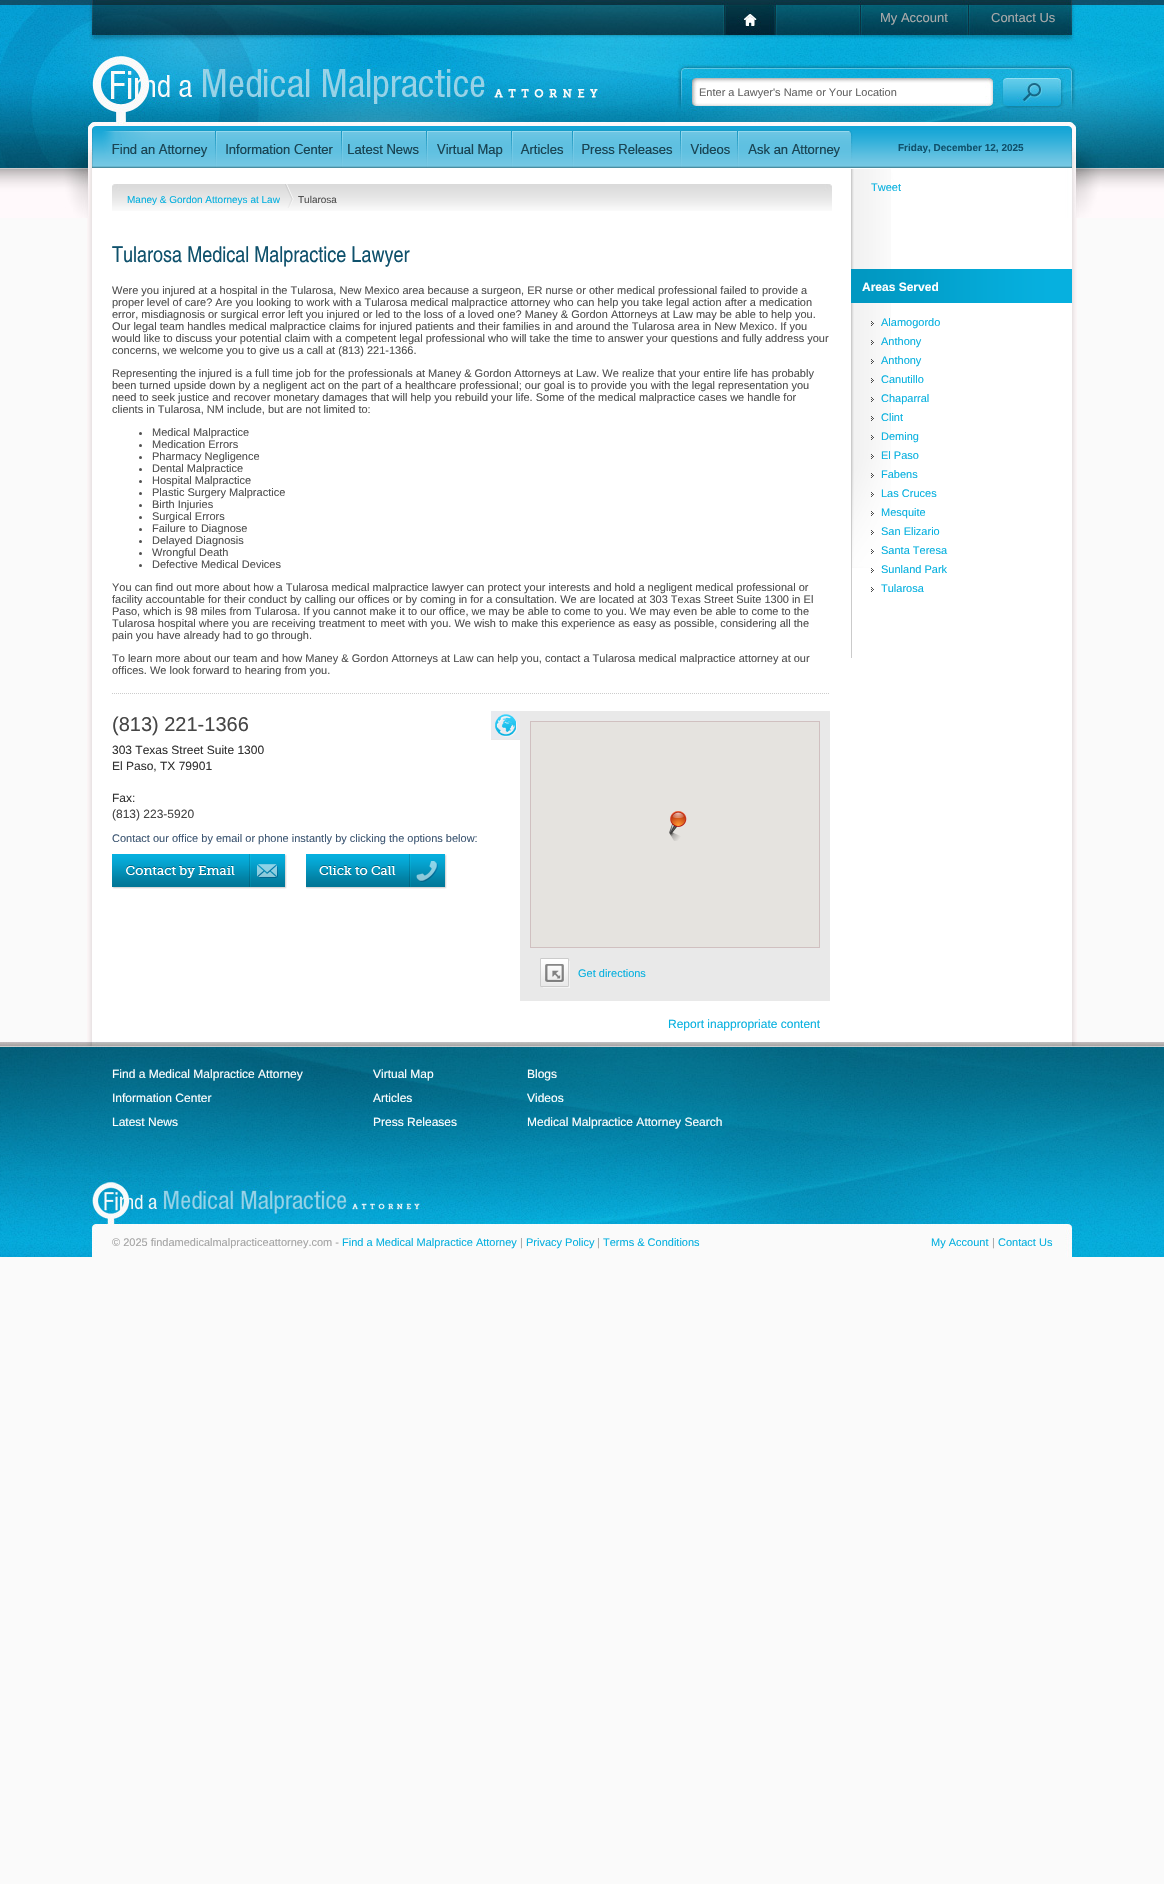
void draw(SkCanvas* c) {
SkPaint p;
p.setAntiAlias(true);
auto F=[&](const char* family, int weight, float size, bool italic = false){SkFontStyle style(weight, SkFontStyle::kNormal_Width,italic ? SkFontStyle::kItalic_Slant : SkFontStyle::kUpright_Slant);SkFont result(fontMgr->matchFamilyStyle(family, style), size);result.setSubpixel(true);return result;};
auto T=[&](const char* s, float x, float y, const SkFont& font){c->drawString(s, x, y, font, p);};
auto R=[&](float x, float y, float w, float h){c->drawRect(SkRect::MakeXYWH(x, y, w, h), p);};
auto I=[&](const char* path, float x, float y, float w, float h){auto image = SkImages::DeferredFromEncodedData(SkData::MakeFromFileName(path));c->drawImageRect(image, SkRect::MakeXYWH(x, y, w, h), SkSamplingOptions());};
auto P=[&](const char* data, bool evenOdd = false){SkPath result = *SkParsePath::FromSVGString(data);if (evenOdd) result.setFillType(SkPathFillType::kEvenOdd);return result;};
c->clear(0xfffafafa);
I("1.png",0,0,1164,218);
auto f1 = F("Liberation Sans",400,13);
p.setColor(0xffaaaaaa);
T("My Account",880,22,f1);
T("Contact Us",991,22,f1);
auto f2 = F("Liberation Sans",400,11);
p.setColor(0xff656565);
T("Enter a Lawyer's Name or Your Location",699,96,f2);
I("2.png",92,126,124,42);
I("3.png",216,126,126,42);
I("4.png",342,126,85,42);
I("5.png",427,126,85,42);
I("6.png",512,126,61,42);
I("7.png",573,126,108,42);
I("8.png",681,126,57,42);
I("9.png",738,126,114,42);
I("10.png",852,126,220,42);
auto f3 = F("Liberation Sans",700,10);
p.setColor(0xff0f516c);
T("Friday, December 12, 2025",898,151,f3);
I("11.png",87,218,990,824);
I("12.png",112,184,720,27);
auto f4 = F("Liberation Sans",400,10);
p.setColor(0xff06b0df);
T("Maney & Gordon Attorneys at Law",127,203,f4);
I("13.png",285,184,9,24);
p.setColor(0xff505050);
T("Tularosa",298,203,f4);
auto f5 = F("TeX Gyre Heros Cn",400,22);
p.setColor(0xff0f516c);
T("Tularosa Medical Malpractice Lawyer",112,262,f5);
p.setColor(0xff505050);
T("Were you injured at a hospital in the Tularosa, New Mexico area because a surgeon, ER nurse or other medical professional failed to provide a",112,294,f2);
T("proper level of care? Are you looking to work with a Tularosa medical malpractice attorney who can help you take legal action after a medication",112,306,f2);
T("error, misdiagnosis or surgical error left you injured or led to the loss of a loved one? Maney & Gordon Attorneys at Law may be able to help you.",112,318,f2);
T("Our legal team handles medical malpractice claims for injured patients and their families in and around the Tularosa area in New Mexico. If you",112,330,f2);
T("would like to discuss your potential claim with a competent legal professional who will take the time to answer your questions and fully address your",112,342,f2);
T("concerns, we welcome you to give us a call at (813) 221-1366.",112,354,f2);
T("Representing the injured is a full time job for the professionals at Maney & Gordon Attorneys at Law. We realize that your entire life has probably",112,377,f2);
T("been turned upside down by a negligent act on the part of a healthcare professional; our goal is to provide you with the legal representation you",112,389,f2);
T("need to seek justice and recover monetary damages that will help you rebuild your life. Some of the medical malpractice cases we handle for",112,401,f2);
T("clients in Tularosa, NM include, but are not limited to:",112,413,f2);
c->drawCircle(140.5,433.5,1.5,p);
T("Medical Malpractice",152,436,f2);
c->drawCircle(140.5,445.5,1.5,p);
T("Medication Errors",152,448,f2);
c->drawCircle(140.5,457.5,1.5,p);
T("Pharmacy Negligence",152,460,f2);
c->drawCircle(140.5,469.5,1.5,p);
T("Dental Malpractice",152,472,f2);
c->drawCircle(140.5,481.5,1.5,p);
T("Hospital Malpractice",152,484,f2);
c->drawCircle(140.5,493.5,1.5,p);
T("Plastic Surgery Malpractice",152,496,f2);
c->drawCircle(140.5,505.5,1.5,p);
T("Birth Injuries",152,508,f2);
c->drawCircle(140.5,517.5,1.5,p);
T("Surgical Errors",152,520,f2);
c->drawCircle(140.5,529.5,1.5,p);
T("Failure to Diagnose",152,532,f2);
c->drawCircle(140.5,541.5,1.5,p);
T("Delayed Diagnosis",152,544,f2);
c->drawCircle(140.5,553.5,1.5,p);
T("Wrongful Death",152,556,f2);
c->drawCircle(140.5,565.5,1.5,p);
T("Defective Medical Devices",152,568,f2);
T("You can find out more about how a Tularosa medical malpractice lawyer can protect your interests and hold a negligent medical professional or",112,591,f2);
T("facility accountable for their conduct by calling our offices or by coming in for a consultation. We are located at 303 Texas Street Suite 1300 in El",112,603,f2);
T("Paso, which is 98 miles from Tularosa. If you cannot make it to our office, we may be able to come to you. We may even be able to come to the",112,615,f2);
T("Tularosa hospital where you are receiving treatment to meet with you. We wish to make this experience as easy as possible, considering all the",112,627,f2);
T("pain you have already had to go through.",112,639,f2);
T("To learn more about our team and how Maney & Gordon Attorneys at Law can help you, contact a Tularosa medical malpractice attorney at our",112,662,f2);
T("offices. We look forward to hearing from you.",112,674,f2);
p.setStroke(true);
p.setStrokeWidth(1);
p.setColor(0xffcccccc);
p.setPathEffect(SkDashPathEffect::Make({{1,1}}, 0));
c->drawPath(P("M112 693.5h718"),p);
p.setPathEffect(nullptr);
auto f6 = F("Liberation Sans",400,20);
p.setStroke(false);
p.setColor(0xff464646);
T("(813) 221-1366",112,731,f6);
auto f7 = F("Liberation Sans",400,12);
p.setColor(0xff323232);
T("303 Texas Street Suite 1300",112,754,f7);
T("El Paso, TX 79901",112,770,f7);
T("Fax:",112,802,f7);
p.setColor(0xff464646);
T("(813) 223-5920",112,818,f7);
p.setColor(0xff3e5773);
T("Contact our office by email or phone instantly by clicking the options below:",112,842,f2);
I("14.png",112,854,175,35);
I("15.png",306,854,141,35);
p.setColor(0xffe9e9e9);
R(520,711,310,290);
I("16.png",491,711,29,29);
p.setStroke(true);
p.setColor(0xffd0c0c0);
c->drawRect(SkRect::MakeXYWH(530.5,721.5,289,226),p);
p.setStroke(false);
p.setColor(0xffe5e3df);
R(531,722,288,225);
I("17.png",669,811,18,30);
I("18.png",540,958,30,30);
p.setColor(0xff06b0df);
T("Get directions",578,977,f2);
T("Report inappropriate content",668,1028,f7);
I("19.png",851,169,40,489);
T("Tweet",871,191,f2);
I("20.png",851,269,221,34);
auto f8 = F("Liberation Sans",700,12);
p.setColor(0xffffffff);
T("Areas Served",862,291,f8);
I("21.png",871,321,3,5);
p.setColor(0xff06b0df);
T("Alamogordo",881,326,f2);
I("21.png",871,340,3,5);
T("Anthony",881,345,f2);
I("21.png",871,359,3,5);
T("Anthony",881,364,f2);
I("21.png",871,378,3,5);
T("Canutillo",881,383,f2);
I("21.png",871,397,3,5);
T("Chaparral",881,402,f2);
I("21.png",871,416,3,5);
T("Clint",881,421,f2);
I("21.png",871,435,3,5);
T("Deming",881,440,f2);
I("22.png",871,454,3,5);
T("El Paso",881,459,f2);
I("23.png",871,473,3,5);
T("Fabens",881,478,f2);
I("24.png",871,492,3,5);
T("Las Cruces",881,497,f2);
I("25.png",871,511,3,5);
T("Mesquite",881,516,f2);
I("26.png",871,530,3,5);
T("San Elizario",881,535,f2);
I("27.png",871,549,3,5);
T("Santa Teresa",881,554,f2);
I("28.png",871,568,3,5);
T("Sunland Park",881,573,f2);
I("28.png",871,587,3,5);
T("Tularosa",881,592,f2);
I("29.png",0,1042,1164,215);
p.setColor(0xffffffff);
T("Find a Medical Malpractice Attorney",112,1078,f7);
T("Information Center",112,1102,f7);
T("Latest News",112,1126,f7);
T("Virtual Map",373,1078,f7);
T("Articles",373,1102,f7);
T("Press Releases",373,1126,f7);
T("Blogs",527,1078,f7);
T("Videos",527,1102,f7);
T("Medical Malpractice Attorney Search",527,1126,f7);
p.setColor(0xffa4a4a4);
T("© 2025 findamedicalmalpracticeattorney.com -",112,1246,f2);
p.setColor(0xff06b0df);
T("Find a Medical Malpractice Attorney",342,1246,f2);
p.setColor(0xffa4a4a4);
T("|",520,1246,f2);
p.setColor(0xff06b0df);
T("Privacy Policy",526,1246,f2);
p.setColor(0xffa4a4a4);
T("|",597,1246,f2);
p.setColor(0xff06b0df);
T("Terms & Conditions",603,1246,f2);
T("My Account",931,1246,f2);
p.setColor(0xffa4a4a4);
T("|",992,1246,f2);
p.setColor(0xff06b0df);
T("Contact Us",998,1246,f2);
}
